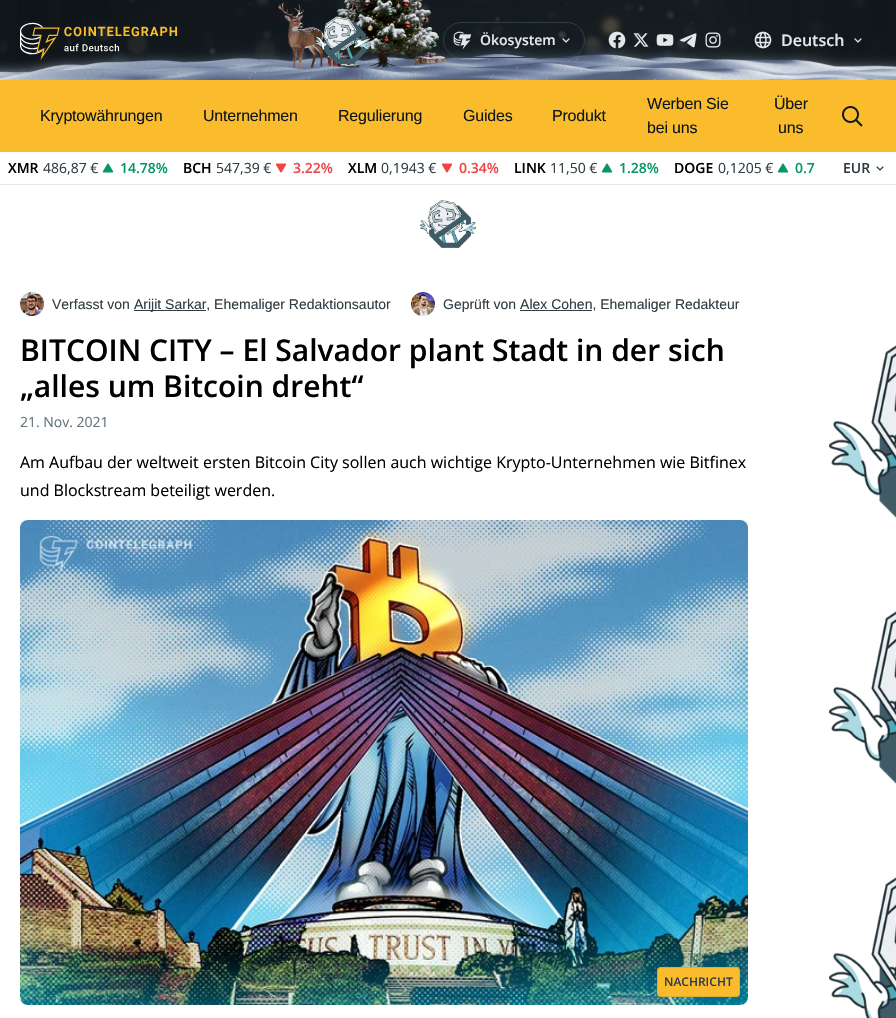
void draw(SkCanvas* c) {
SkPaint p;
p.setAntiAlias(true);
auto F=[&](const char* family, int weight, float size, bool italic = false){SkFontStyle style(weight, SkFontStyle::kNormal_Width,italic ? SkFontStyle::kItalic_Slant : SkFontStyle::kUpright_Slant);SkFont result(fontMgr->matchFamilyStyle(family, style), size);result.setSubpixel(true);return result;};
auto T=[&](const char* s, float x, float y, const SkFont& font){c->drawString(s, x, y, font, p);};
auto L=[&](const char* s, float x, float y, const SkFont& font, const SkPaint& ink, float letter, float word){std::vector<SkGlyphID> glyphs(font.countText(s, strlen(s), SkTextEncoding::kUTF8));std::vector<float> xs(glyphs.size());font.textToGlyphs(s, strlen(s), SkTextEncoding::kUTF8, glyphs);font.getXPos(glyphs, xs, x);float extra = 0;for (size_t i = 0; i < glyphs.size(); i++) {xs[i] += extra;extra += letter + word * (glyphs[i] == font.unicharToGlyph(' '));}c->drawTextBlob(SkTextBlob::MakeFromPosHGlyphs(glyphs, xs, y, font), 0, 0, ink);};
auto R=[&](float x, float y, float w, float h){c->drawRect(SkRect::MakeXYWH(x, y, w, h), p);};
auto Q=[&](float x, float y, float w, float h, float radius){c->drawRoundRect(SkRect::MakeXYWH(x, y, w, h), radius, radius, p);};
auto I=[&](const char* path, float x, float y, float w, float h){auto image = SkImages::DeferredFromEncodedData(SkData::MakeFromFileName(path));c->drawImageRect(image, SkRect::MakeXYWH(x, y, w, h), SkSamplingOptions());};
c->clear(0xffffffff);
p.setColor(0xff10171b);
R(0,0,896,73);
I("1.png",0,0,896,80);
I("2.png",20,22,158,38);
I("3.png",315,16,56,48);
p.setStroke(true);
p.setStrokeWidth(1);
p.setColor(0xff303d43);
c->drawRoundRect(SkRect::MakeXYWH(443.5,22.5,141,35),17.5,17.5,p);
I("4.png",453,31,19,19);
auto f1 = F("Open Sans",600,14);
p.setStroke(false);
p.setColor(0xffe1e8ea);
T("Ökosystem",480,45,f1);
I("5.png",562,38,8,5);
I("6.png",608,31,18,18);
I("7.png",633,33,16,14);
I("8.png",656,34,18,12);
I("9.png",679,33,18,15);
I("10.png",705,32,16,16);
I("11.png",754,31,18,18);
auto f2 = F("Open Sans",600,16);
T("Deutsch",781,46,f2);
I("12.png",854,38,8,5);
p.setColor(0xfffabc2c);
R(0,80,896,72);
auto f3 = F("Liberation Sans",400,16);
p.setColor(0xff10171b);
L("Kryptowährungen",40,121,f3,p,-.2,0);
L("Unternehmen",203,121,f3,p,-.2,0);
L("Regulierung",338,121,f3,p,-.2,0);
L("Guides",463,121,f3,p,-.2,0);
L("Produkt",552,121,f3,p,-.2,0);
L("Werben Sie",647,109,f3,p,-.2,0);
L("bei uns",647,133,f3,p,-.2,0);
L("Über",774,109,f3,p,-.2,0);
L("uns",778,133,f3,p,-.2,0);
I("13.png",842,106,21,21);
p.setColor(0xffe1e8ea);
R(0,184,896,1);
p.setColor(0xff000000);
T("XMR",8,173,f1);
auto f4 = F("Open Sans",400,14);
p.setColor(0xff303d43);
T("486,87 €",43,173,f4);
I("14.png",102,163,12,10);
p.setColor(0xff059669);
T("14.78%",120,173,f1);
p.setColor(0xff000000);
T("BCH",183,173,f1);
p.setColor(0xff303d43);
T("547,39 €",216,173,f4);
I("15.png",275,163,12,10);
p.setColor(0xffef4444);
T("3.22%",293,173,f1);
p.setColor(0xff000000);
T("XLM",348,173,f1);
p.setColor(0xff303d43);
T("0,1943 €",381,173,f4);
I("15.png",441,163,12,10);
p.setColor(0xffef4444);
T("0.34%",459,173,f1);
p.setColor(0xff000000);
T("LINK",514,173,f1);
p.setColor(0xff303d43);
T("11,50 €",550,173,f4);
I("14.png",601,163,12,10);
p.setColor(0xff059669);
T("1.28%",619,173,f1);
p.setColor(0xff000000);
T("DOGE",674,173,f1);
p.setColor(0xff303d43);
T("0,1205 €",718,173,f4);
I("14.png",777,163,12,10);
p.setColor(0xff059669);
T("0.7",795,173,f1);
p.setColor(0xff303d43);
T("EUR",843,173,f1);
I("16.png",876,166,8,5);
I("17.png",420,200,56,48);
I("18.png",20,292,24,24);
auto f5 = F("Liberation Sans",400,14);
T("Verfasst von",52,309,f5);
R(134,310,72,1);
T("Arijit Sarkar, Ehemaliger Redaktionsautor",134,309,f5);
I("19.png",411,292,24,24);
T("Geprüft von Alex Cohen, Ehemaliger Redakteur",443,309,f5);
R(520,310,72,1);
auto f6 = F("Open Sans",600,30);
p.setColor(0xff000000);
T("BITCOIN CITY – El Salvador plant Stadt in der sich",20,361,f6);
T("„alles um Bitcoin dreht“",20,397,f6);
p.setColor(0xff66747c);
T("21. Nov. 2021",20,427,f4);
auto f7 = F("Open Sans",400,16);
p.setColor(0xff000000);
T("Am Aufbau der weltweit ersten Bitcoin City sollen auch wichtige Krypto-Unternehmen wie Bitfinex",20,468,f7);
T("und Blockstream beteiligt werden.",20,496,f7);
I("20.png",20,520,728,485);
p.setColor(0xfffabc2c);
Q(657,967,83,30,4);
p.setStroke(true);
p.setColor(0x2631616f);
c->drawRoundRect(SkRect::MakeXYWH(657.5,967.5,82,29),3.5,3.5,p);
auto f8 = F("Open Sans",600,12);
p.setStroke(false);
p.setColor(0xff303d43);
T("NACHRICHT",664,986,f8);
I("21.png",829,345,67,173);
I("21.png",829,611,67,173);
I("22.png",829,877,67,141);
}
